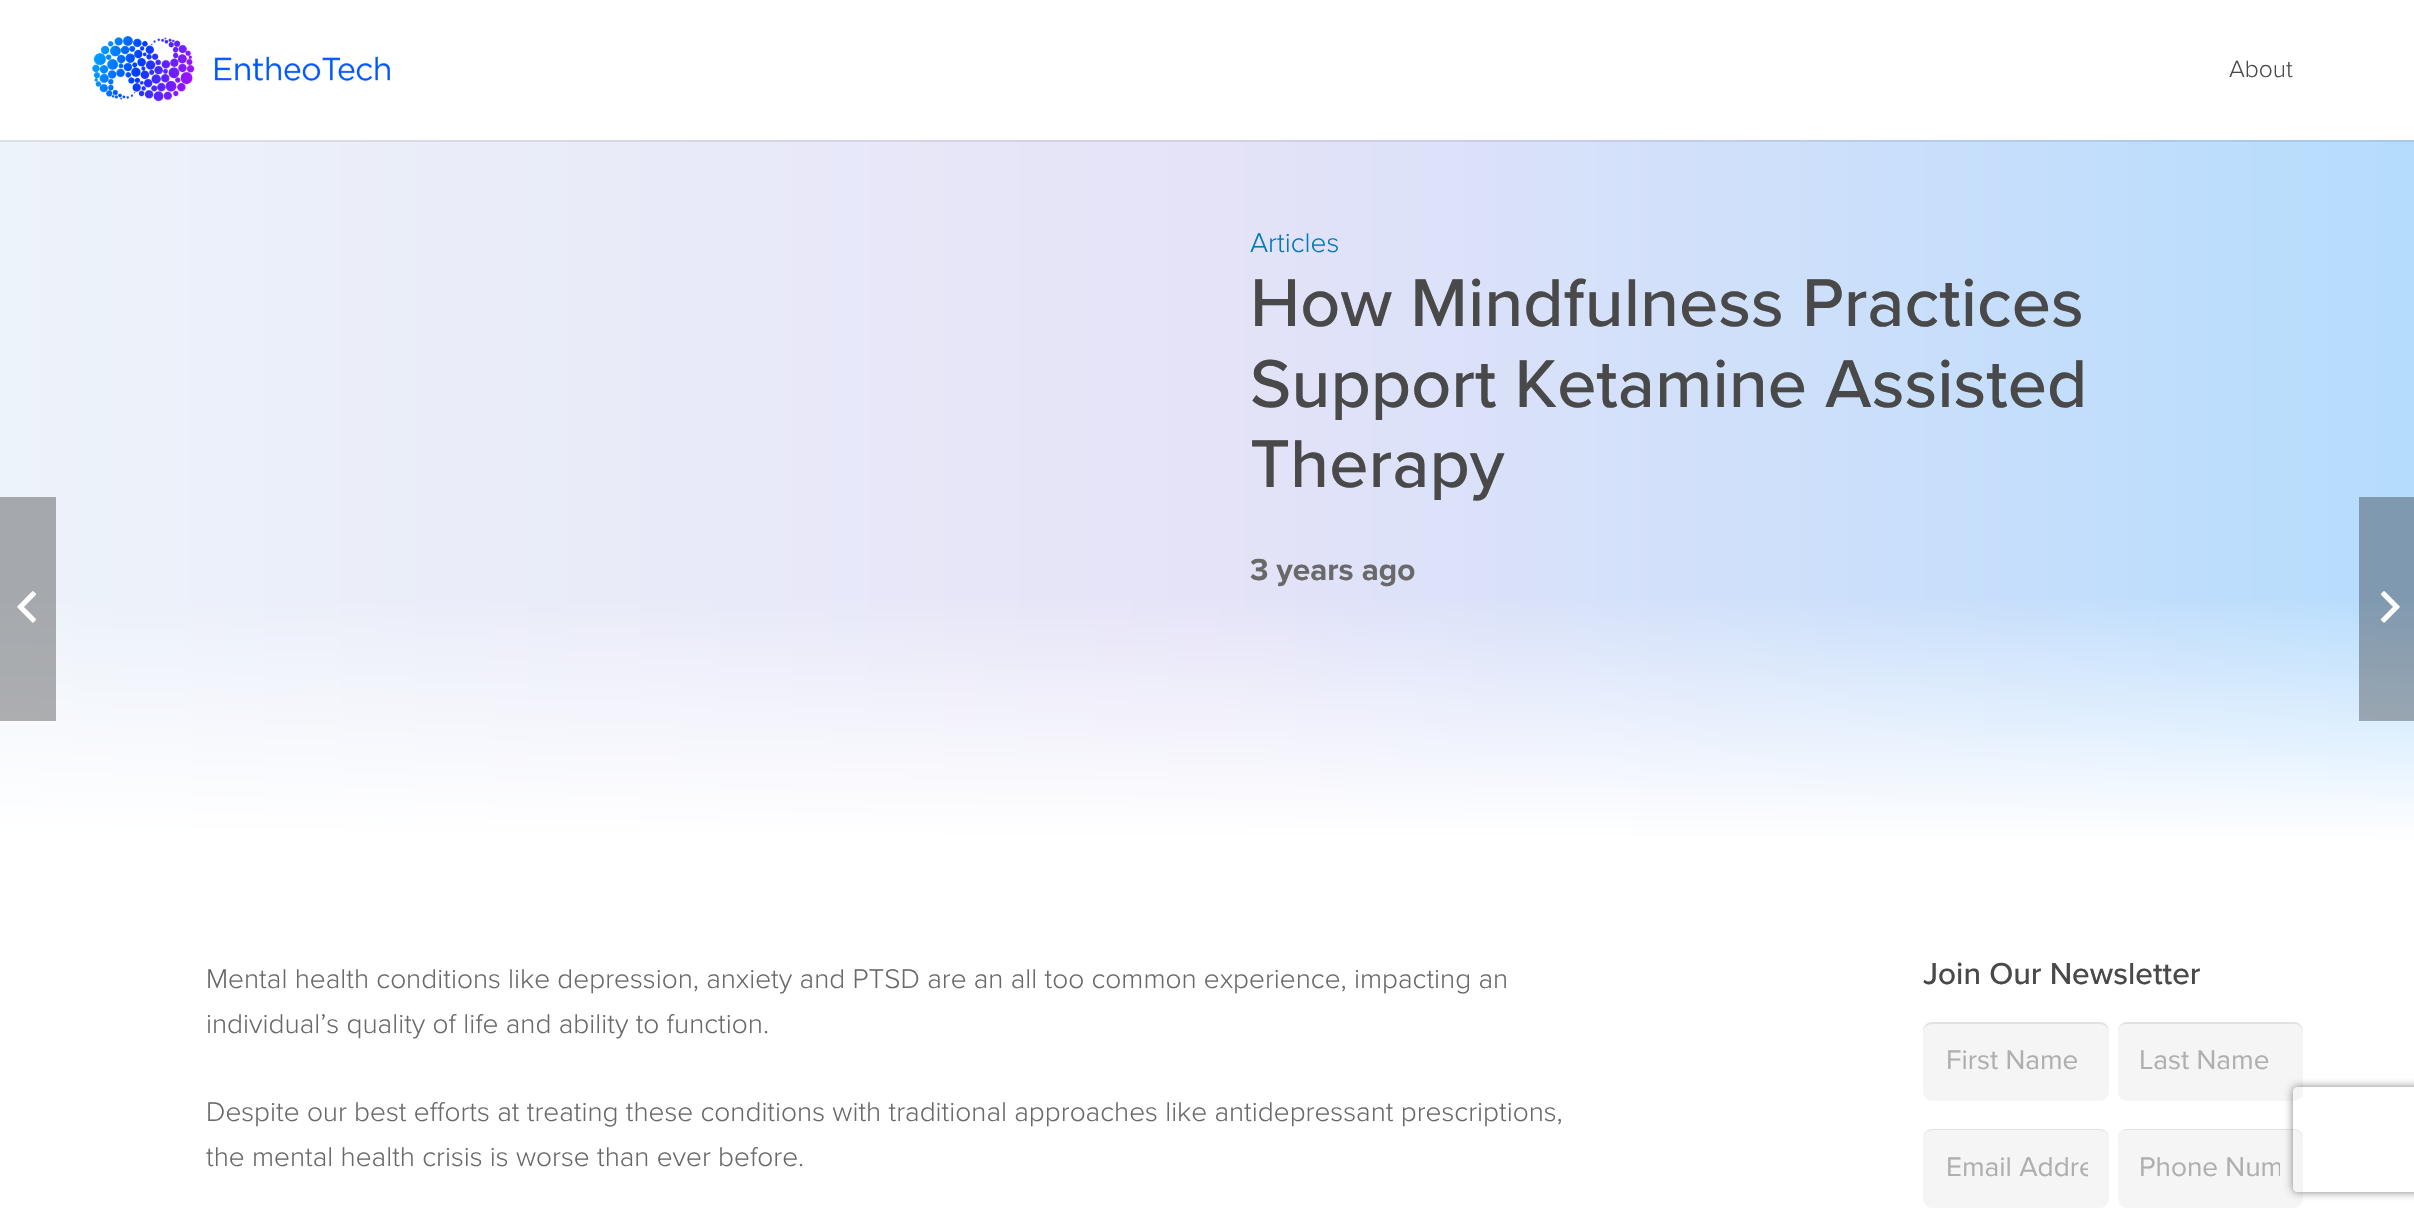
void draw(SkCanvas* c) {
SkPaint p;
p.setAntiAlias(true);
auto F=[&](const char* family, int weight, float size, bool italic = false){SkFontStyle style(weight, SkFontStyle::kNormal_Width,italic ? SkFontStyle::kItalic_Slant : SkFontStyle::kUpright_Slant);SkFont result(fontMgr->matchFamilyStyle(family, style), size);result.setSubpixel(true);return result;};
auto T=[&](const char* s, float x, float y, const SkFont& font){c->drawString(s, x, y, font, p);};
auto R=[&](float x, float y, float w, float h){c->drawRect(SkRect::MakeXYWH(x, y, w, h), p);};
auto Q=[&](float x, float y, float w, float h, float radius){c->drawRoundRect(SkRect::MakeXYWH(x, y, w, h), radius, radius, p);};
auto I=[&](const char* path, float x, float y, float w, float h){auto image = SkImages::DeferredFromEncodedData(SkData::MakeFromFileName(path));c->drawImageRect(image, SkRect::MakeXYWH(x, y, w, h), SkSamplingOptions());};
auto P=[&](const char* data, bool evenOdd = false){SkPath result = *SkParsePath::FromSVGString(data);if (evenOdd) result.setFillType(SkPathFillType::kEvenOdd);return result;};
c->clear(0xffffffff);
I("1.png",92,35,298,67);
auto f1 = F("Proxima Nova",300,24.5);
p.setColor(0xff494949);
T("About",2229,77,f1);
{
const SkColor colors[] = {0xffedf3fa,0xffe5e3f8,0xffb5dcfd};
const float stops[] = {0,.5,1};
const SkPoint ends[] = {{0,422}, {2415,422}};
p.setShader(SkGradientShader::MakeLinear(ends, colors, stops, 3, SkTileMode::kClamp));
p.setAlpha(255);
}
R(0,142,2414,701);
{
const SkColor colors[] = {0xffdae0e6,0xffd3d1e4,0xffa7cae9};
const float stops[] = {0,.5,1};
const SkPoint ends[] = {{0,422}, {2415,422}};
p.setShader(SkGradientShader::MakeLinear(ends, colors, stops, 3, SkTileMode::kClamp));
p.setAlpha(255);
}
R(0,140,2414,2);
auto f2 = F("Proxima Nova",300,28);
p.setShader(nullptr);
p.setColor(0xff0078bc);
T("Articles",1250,252,f2);
auto f3 = F("Proxima Nova",500,70);
p.setColor(0xff494949);
T("How Mindfulness Practices",1250,326,f3);
T("Support Ketamine Assisted",1250,407,f3);
T("Therapy",1250,487,f3);
auto f4 = F("Proxima Nova",700,31.5);
p.setColor(0xff696969);
T("3 years ago",1250,580,f4);
{
const SkColor colors[] = {0xffffffff,0x00ffffff};
const float stops[] = {0,1};
const SkPoint ends[] = {{1208,844}, {1208,592}};
p.setShader(SkGradientShader::MakeLinear(ends, colors, stops, 2, SkTileMode::kClamp));
p.setAlpha(255);
}
R(0,600,2414,243);
p.setShader(nullptr);
p.setColor(0x4d000000);
R(0,497,56,224);
I("2.png",17,591,19,32);
R(2359,497,55,224);
I("3.png",2380,591,20,32);
p.setColor(0xff696969);
T("Mental health conditions like depression, anxiety and PTSD are an all too common experience, impacting an",206,988,f2);
T("individual’s quality of life and ability to function.",206,1033,f2);
T("Despite our best efforts at treating these conditions with traditional approaches like antidepressant prescriptions,",206,1121,f2);
T("the mental health crisis is worse than ever before.",206,1166,f2);
auto f5 = F("Proxima Nova",500,31.5);
p.setColor(0xff494949);
T("Join Our Newsletter",1923,984,f5);
p.setColor(0xfff5f5f5);
Q(1923,1022,186,79,9);
p.setColor(0x14000000);
c->drawPath(P("M1932 1024h168c5 0 9 4 9 8v-1c0-5-4-9-9-9h-168c-5 0-9 4-9 9v1c0-4 4-8 9-8z"),p);
auto f6 = F("Proxima Nova",400,28);
p.setColor(0xffafafaf);
T("First Name",1946,1069,f6);
p.setColor(0xfff5f5f5);
Q(2118,1022,185,79,9);
p.setColor(0x14000000);
c->drawPath(P("M2126 1024h169c4 0 8 4 8 8v-1c0-5-4-9-9-9h-167c-5 0-9 4-9 9v1c0-4 3-8 8-8z"),p);
p.setColor(0xffafafaf);
T("Last Name",2139,1069,f6);
p.setColor(0xfff5f5f5);
Q(1923,1129,186,79,9);
p.setColor(0x14000000);
c->drawPath(P("M1932 1130h168c5 0 9 4 9 9v-1c0-5-4-9-9-9h-168c-5 0-9 4-9 9v1c0-5 4-9 9-9z"),p);
c->save();
c->clipRect(SkRect::MakeXYWH(1946,1146,142,41));
p.setColor(0xffafafaf);
T("Email Addre",1946,1176,f6);
c->restore();
p.setColor(0xfff5f5f5);
Q(2118,1129,185,79,9);
p.setColor(0x14000000);
c->drawPath(P("M2126 1130h169c4 0 8 4 8 9v-1c0-5-4-9-9-9h-167c-5 0-9 4-9 9v1c0-5 3-9 8-9z"),p);
c->save();
c->clipRect(SkRect::MakeXYWH(2139,1146,141,41));
p.setColor(0xffafafaf);
T("Phone Num",2139,1176,f6);
c->restore();
c->save();
c->clipPath(P("M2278 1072h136v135h-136zm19 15h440c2 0 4 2 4 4v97c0 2-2 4-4 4h-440c-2 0-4-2-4-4v-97c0-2 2-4 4-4z",true),true);
p.setColor(0xff808080);
p.setMaskFilter(SkMaskFilter::MakeBlur(kNormal_SkBlurStyle, 4.5));
c->drawRoundRect(SkRect::MakeXYWH(2293,1087,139,105),4,4,p);
p.setMaskFilter(nullptr);
c->restore();
}
